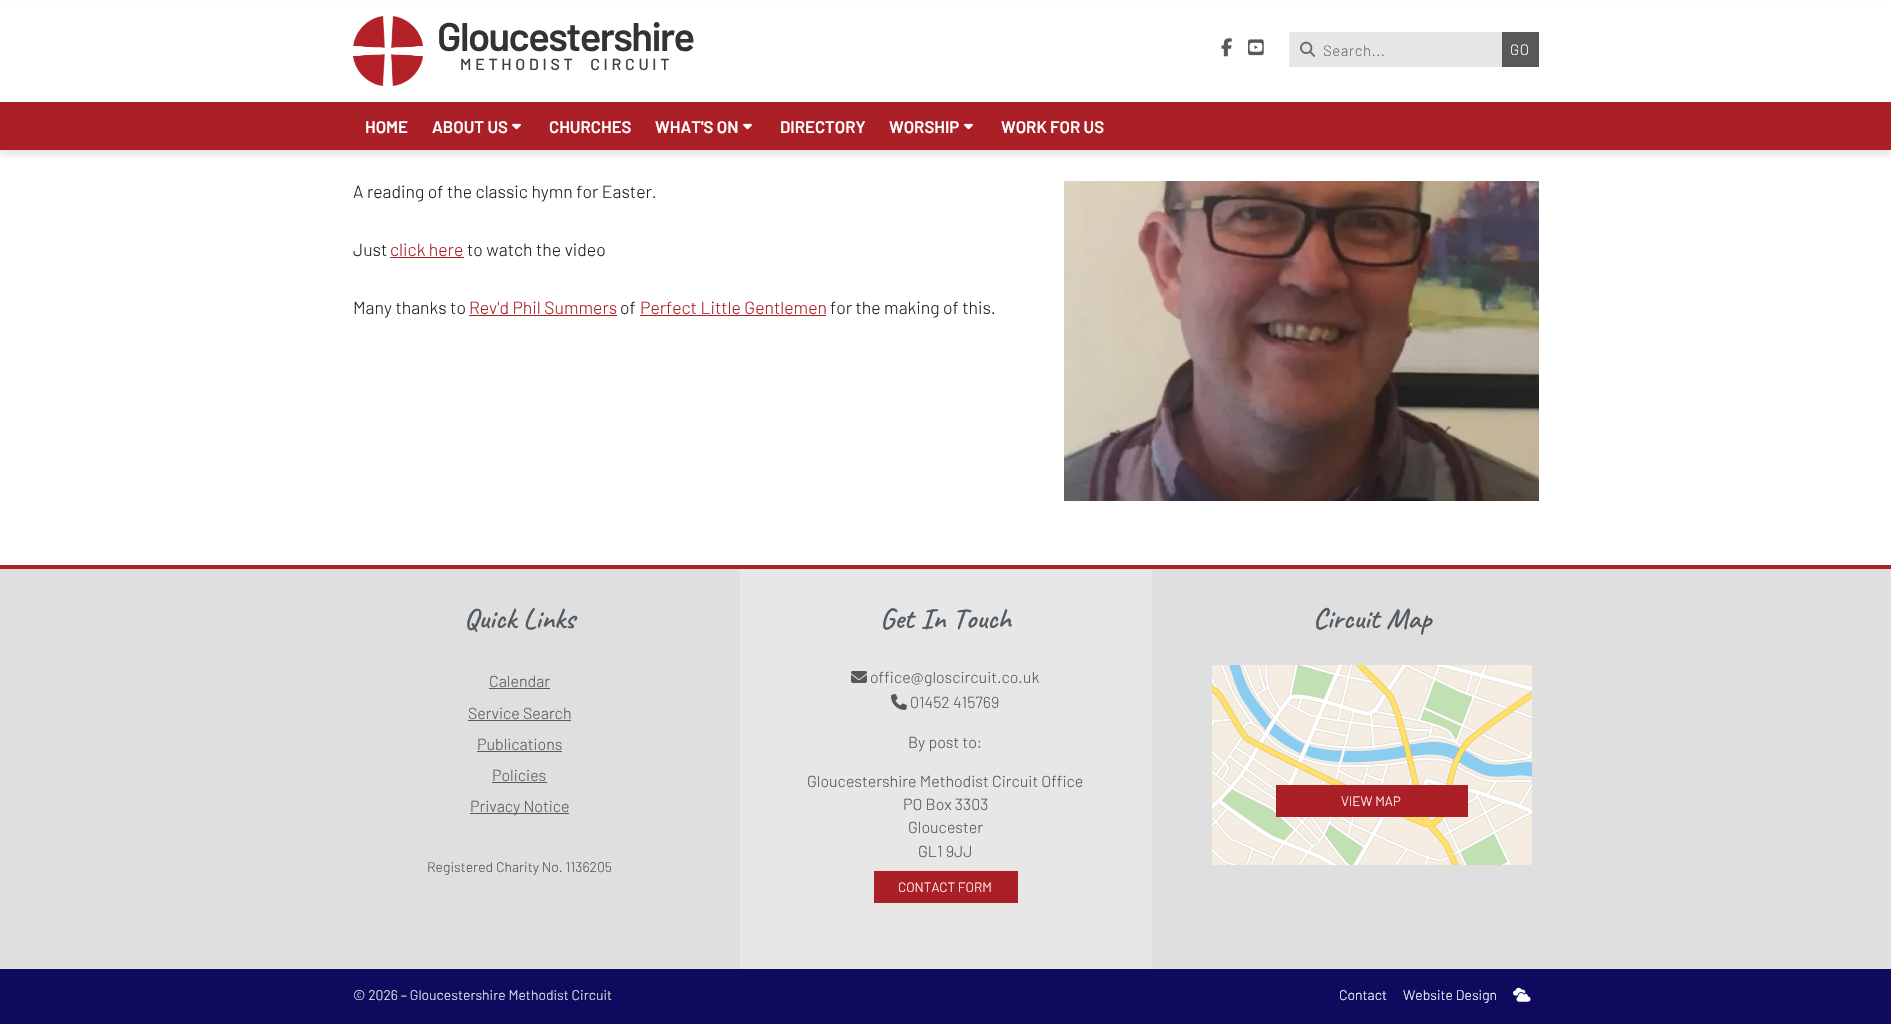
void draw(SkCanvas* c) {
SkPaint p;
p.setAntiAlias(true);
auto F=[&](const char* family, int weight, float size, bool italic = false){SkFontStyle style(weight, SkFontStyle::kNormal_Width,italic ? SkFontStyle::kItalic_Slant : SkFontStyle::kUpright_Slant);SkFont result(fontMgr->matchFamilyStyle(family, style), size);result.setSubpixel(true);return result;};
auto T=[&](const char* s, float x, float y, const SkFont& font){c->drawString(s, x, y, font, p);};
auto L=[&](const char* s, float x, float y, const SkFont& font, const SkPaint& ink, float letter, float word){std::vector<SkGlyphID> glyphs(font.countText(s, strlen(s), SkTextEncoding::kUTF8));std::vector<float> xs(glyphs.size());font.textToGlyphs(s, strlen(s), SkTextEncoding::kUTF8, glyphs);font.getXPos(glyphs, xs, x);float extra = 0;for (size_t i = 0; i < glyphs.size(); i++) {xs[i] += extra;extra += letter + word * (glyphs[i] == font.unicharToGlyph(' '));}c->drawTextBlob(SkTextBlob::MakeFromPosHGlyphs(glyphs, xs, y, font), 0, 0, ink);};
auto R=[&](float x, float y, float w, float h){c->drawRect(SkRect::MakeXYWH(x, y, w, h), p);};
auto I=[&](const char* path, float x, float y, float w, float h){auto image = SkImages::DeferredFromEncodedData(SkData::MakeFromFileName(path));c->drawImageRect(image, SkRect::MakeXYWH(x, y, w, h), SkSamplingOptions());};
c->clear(0xffffffff);
p.setColor(0x1a780a1c);
p.setMaskFilter(SkMaskFilter::MakeBlur(kNormal_SkBlurStyle, 2.5));
c->drawRect(SkRect::MakeXYWH(0,6,1891,150),p);
p.setMaskFilter(nullptr);
p.setColor(0xffffffff);
R(0,3,1891,99);
I("1.png",352,16,71,70);
auto f1 = F("Barlow",600,40);
p.setColor(0xff333333);
L("Gloucestershire",437,51,f1,p,-1.6,0);
I("2.png",1221,38,11,19);
I("3.png",1248,39,16,17);
p.setColor(0xffe7e7e7);
R(1289,32,213,35);
I("4.png",1300,41,16,16);
auto f2 = F("Barlow",300,15);
p.setColor(0xff6a6a6a);
L("Search...",1323,56,f2,p,.5,0);
p.setColor(0xff595959);
R(1502,32,37,35);
p.setColor(0xffffffff);
L("GO",1510,55,f2,p,.5,0);
auto f3 = F("Barlow",500,16);
p.setColor(0xff3b4146);
L("METHODIST  CIRCUIT",460,70,f3,p,3.7,0);
p.setColor(0xffab1f27);
R(0,102,1891,48);
auto f4 = F("Barlow",600,16.75);
p.setColor(0xffffffff);
T("HOME",365,133,f4);
T("ABOUT US",432,133,f4);
I("5.png",512,123,9,7);
T("CHURCHES",549,133,f4);
T("WHAT'S ON",655,133,f4);
I("5.png",743,123,9,7);
T("DIRECTORY",780,133,f4);
T("WORSHIP",889,133,f4);
I("5.png",964,123,9,7);
T("WORK FOR US",1001,133,f4);
auto f5 = F("Barlow",300,17.6);
p.setColor(0xff212121);
T("A reading of the classic hymn for Easter.",353,198,f5);
I("6.png",1064,181,475,320);
T("Just",353,256,f5);
p.setColor(0xffab1f27);
T("click here",390,256,f5);
R(390,257,74,1);
p.setColor(0xff212121);
T("to watch the video",467,256,f5);
T("Many thanks to",353,314,f5);
p.setColor(0xffab1f27);
T("Rev'd Phil Summers",469,314,f5);
R(469,315,148,1);
p.setColor(0xff212121);
T("of",620,314,f5);
p.setColor(0xffab1f27);
T("Perfect Little Gentlemen",640,314,f5);
R(640,315,186,1);
p.setColor(0xff212121);
T("for the making of this.",830,314,f5);
p.setColor(0xffdfdfdf);
R(0,569,1891,400);
p.setColor(0xffab1f27);
R(0,565,1891,4);
auto f6 = F("Caveat",600,29);
p.setColor(0xff545c63);
T("Quick Links",464,628,f6);
auto f7 = F("Barlow",300,16);
T("Calendar",489,687,f7);
R(489,688,61,1);
T("Service Search",468,719,f7);
R(468,720,103,1);
T("Publications",477,750,f7);
R(477,751,85,1);
T("Policies",492,781,f7);
R(492,782,55,1);
R(470,813,99,1);
T("Privacy Notice",470,812,f7);
auto f8 = F("Barlow",300,14);
p.setColor(0xff575757);
T("Registered Charity No. 1136205",427,872,f8);
p.setColor(0xffe7e7e7);
R(740,569,412,400);
p.setColor(0xff545c63);
T("Get In Touch",880,628,f6);
I("7.png",851,671,16,12);
T("office@gloscircuit.co.uk",870,683,f7);
I("8.png",891,694,16,16);
T("01452 415769",910,708,f7);
p.setColor(0xff575757);
T("By post to:",908,748,f7);
T("Gloucestershire Methodist Circuit Office",807,787,f7);
T("PO Box 3303",903,810,f7);
T("Gloucester",908,833,f7);
T("GL1 9JJ",918,857,f7);
p.setColor(0xffab1f27);
R(874,871,144,32);
auto f9 = F("Barlow",300,13.5);
p.setColor(0xffffffff);
T("CONTACT FORM",898,892,f9);
p.setColor(0xff545c63);
T("Circuit Map",1313,628,f6);
I("9.png",1212,665,320,200);
p.setColor(0xffab1f27);
R(1276,785,192,32);
p.setColor(0xffffffff);
T("VIEW MAP",1341,806,f9);
p.setColor(0xff0e0a5d);
R(0,969,1891,55);
p.setColor(0xffebebeb);
T("© 2026 – Gloucestershire Methodist Circuit",353,1000,f8);
p.setColor(0xffffffff);
T("Contact",1339,1000,f8);
T("Website Design",1403,1000,f8);
I("10.png",1513,987,18,15);
}
